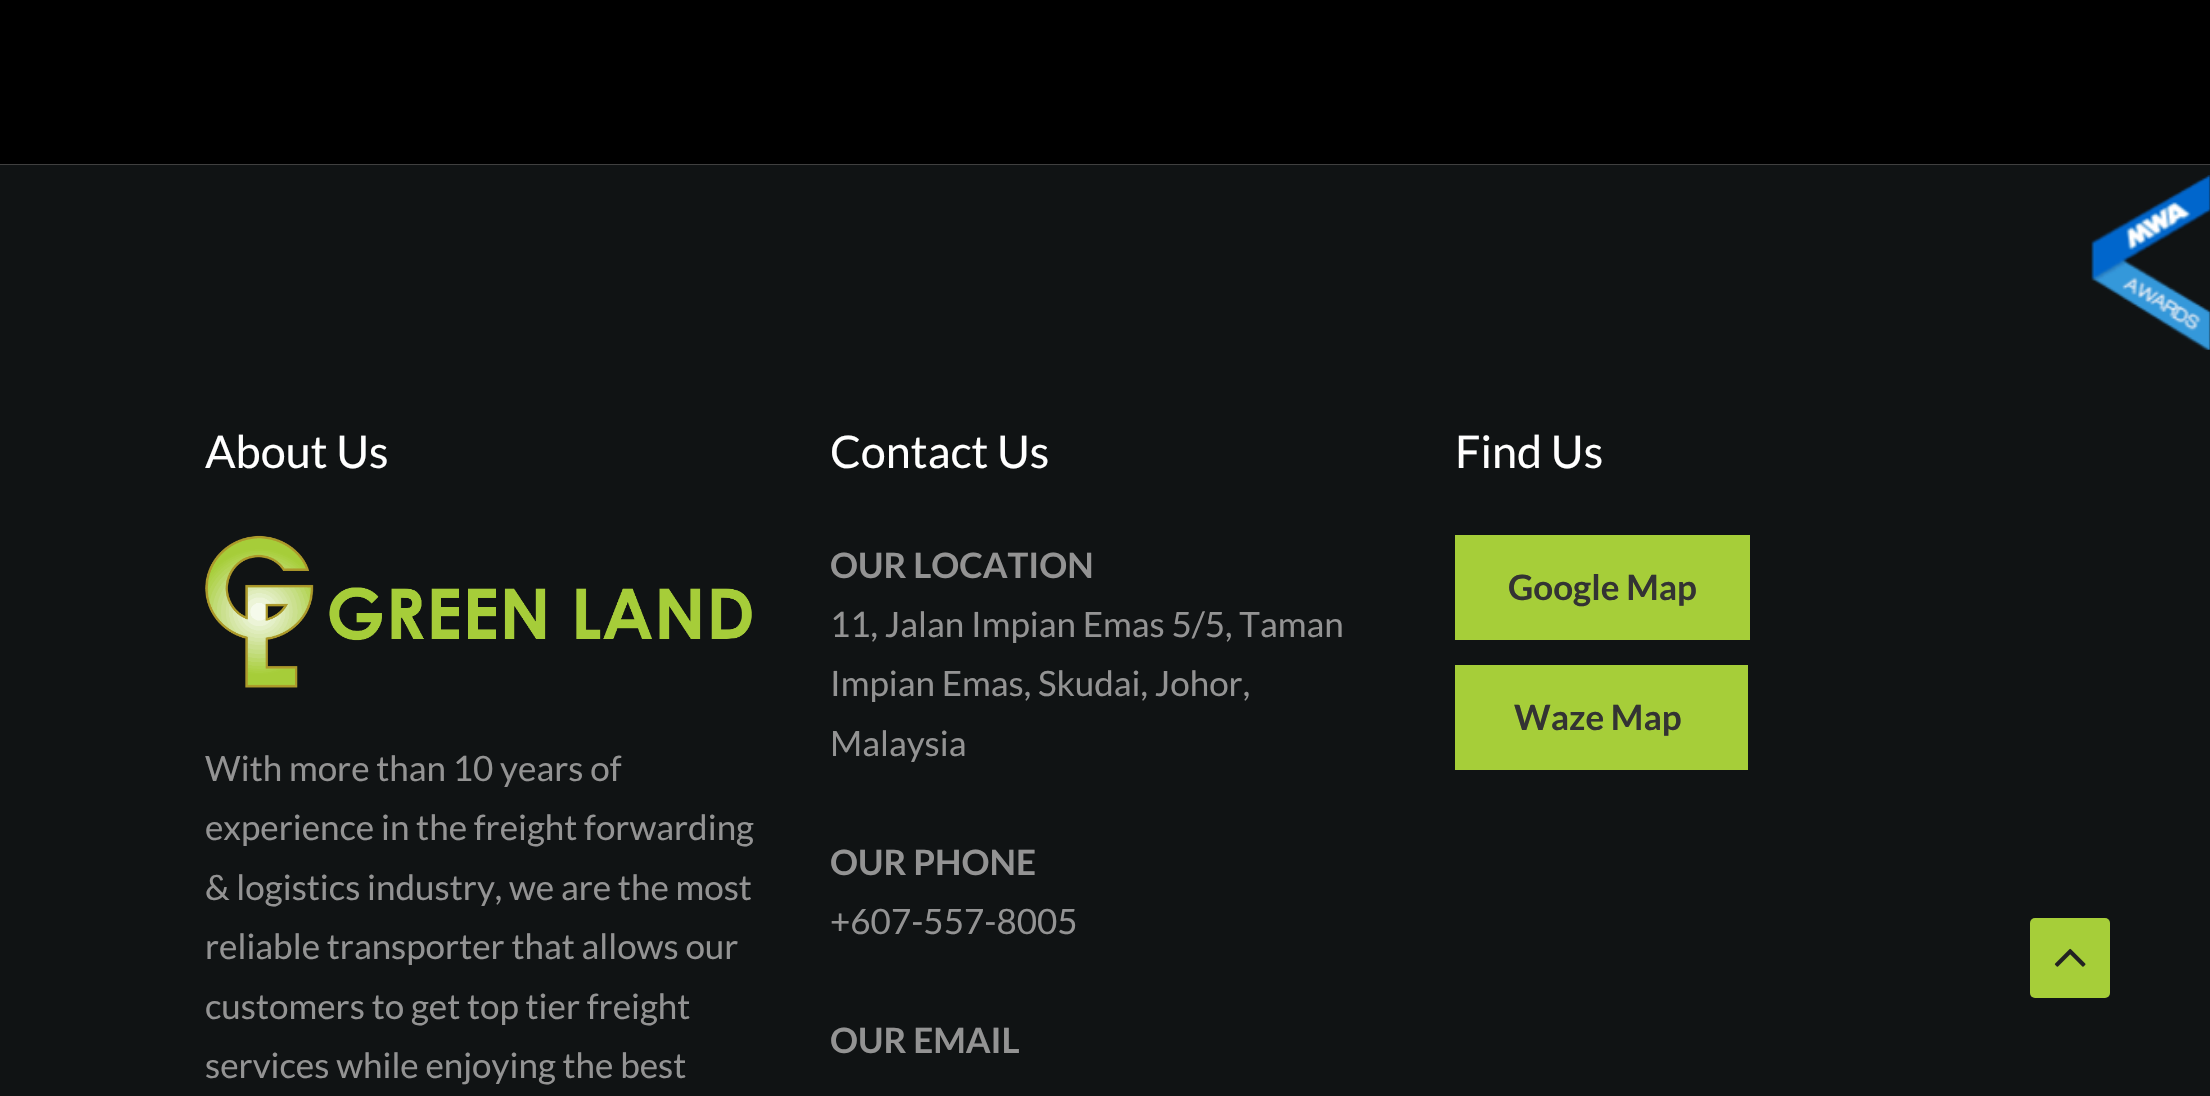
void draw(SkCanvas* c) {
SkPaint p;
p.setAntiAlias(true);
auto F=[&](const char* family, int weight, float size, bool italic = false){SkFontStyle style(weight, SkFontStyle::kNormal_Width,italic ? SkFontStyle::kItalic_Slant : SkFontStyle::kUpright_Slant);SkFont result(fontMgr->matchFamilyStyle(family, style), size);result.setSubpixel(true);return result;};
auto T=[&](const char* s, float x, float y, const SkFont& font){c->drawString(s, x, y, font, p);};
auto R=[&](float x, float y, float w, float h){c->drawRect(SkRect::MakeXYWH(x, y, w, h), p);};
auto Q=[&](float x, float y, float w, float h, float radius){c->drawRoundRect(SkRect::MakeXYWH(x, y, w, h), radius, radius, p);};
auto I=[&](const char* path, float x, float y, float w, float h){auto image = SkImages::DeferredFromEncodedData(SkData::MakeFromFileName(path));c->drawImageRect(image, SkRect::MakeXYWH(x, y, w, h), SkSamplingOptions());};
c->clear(0xffffffff);
p.setColor(0xff101314);
R(0,165,2210,931);
I("1.png",2091,175,119,175);
I("2.png",0,0,2210,165);
auto f1 = F("Lato",400,45);
p.setColor(0xffffffff);
T("About Us",205,468,f1);
I("3.png",205,535,547,153);
auto f2 = F("Lato",400,35);
p.setColor(0xff939393);
T("With more than 10 years of",205,781,f2);
T("experience in the freight forwarding",205,840,f2);
T("& logistics industry, we are the most",205,900,f2);
T("reliable transporter that allows our",205,959,f2);
T("customers to get top tier freight",205,1019,f2);
T("services while enjoying the best",205,1078,f2);
p.setColor(0xffffffff);
T("Contact Us",830,468,f1);
auto f3 = F("Lato",700,35);
p.setColor(0xff939393);
T("OUR LOCATION",830,578,f3);
T("11, Jalan Impian Emas 5/5, Taman",830,637,f2);
T("Impian Emas, Skudai, Johor,",830,696,f2);
T("Malaysia",830,756,f2);
T("OUR PHONE",830,875,f3);
T("+607-557-8005",830,934,f2);
T("OUR EMAIL",830,1053,f3);
p.setColor(0xffffffff);
T("Find Us",1455,468,f1);
p.setColor(0xffa6ce39);
R(1455,535,295,105);
p.setColor(0xff333333);
T("Google Map",1508,600,f3);
p.setColor(0xffa6ce39);
R(1455,665,293,105);
p.setColor(0xff333333);
T("Waze Map",1514,730,f3);
p.setColor(0xffa6ce39);
Q(2030,918,80,80,5);
I("4.png",2054,948,32,19);
}
